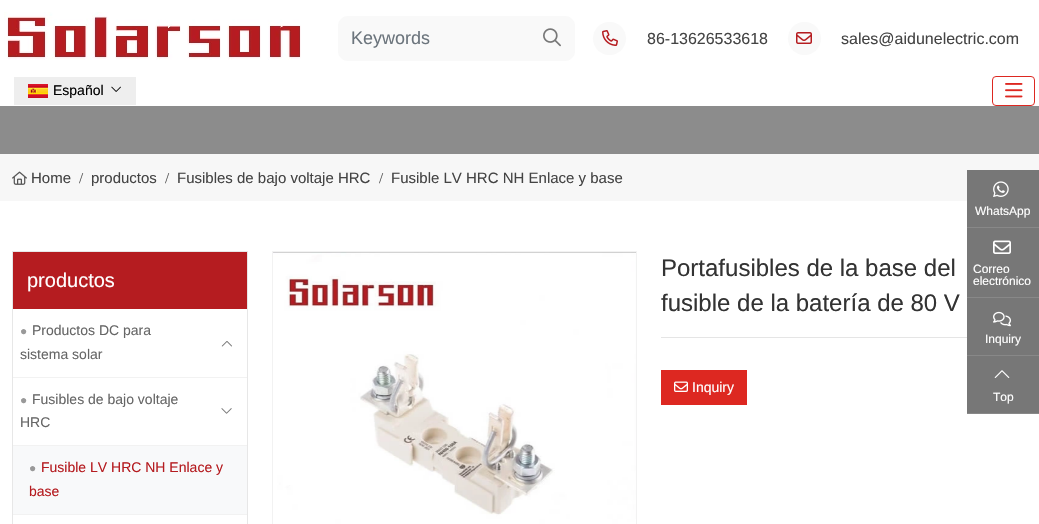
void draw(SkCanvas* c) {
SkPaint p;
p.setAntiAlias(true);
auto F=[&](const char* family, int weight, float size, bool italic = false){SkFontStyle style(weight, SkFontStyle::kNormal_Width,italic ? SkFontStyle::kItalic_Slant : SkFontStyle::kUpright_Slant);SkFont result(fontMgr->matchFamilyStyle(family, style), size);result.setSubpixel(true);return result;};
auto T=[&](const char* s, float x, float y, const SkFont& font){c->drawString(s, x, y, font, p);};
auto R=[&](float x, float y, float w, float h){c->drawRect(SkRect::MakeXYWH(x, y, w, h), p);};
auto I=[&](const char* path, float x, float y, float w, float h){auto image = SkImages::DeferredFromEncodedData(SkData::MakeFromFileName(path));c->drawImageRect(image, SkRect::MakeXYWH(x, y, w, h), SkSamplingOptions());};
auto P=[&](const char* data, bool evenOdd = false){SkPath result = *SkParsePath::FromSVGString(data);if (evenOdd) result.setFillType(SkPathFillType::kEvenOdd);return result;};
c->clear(0xffffffff);
I("1.png",4,12,297,48);
p.setColor(0xfff9f9f9);
c->drawPath(P("M348 16h183v45h-183c-5.5 0-10-4.5-10-10v-25c0-5.5 4.5-10 10-10z"),p);
auto f1 = F("Liberation Sans",400,18);
p.setColor(0xff6c757d);
T("Keywords",351,44,f1);
p.setColor(0xfff9f9f9);
c->drawPath(P("M530 16h35c5.5 0 10 4.5 10 10v25c0 5.5-4.5 10-10 10h-35z"),p);
I("2.png",543,28,18,19);
c->drawCircle(609.5,38.5,16.5,p);
I("3.png",602,30,16,16);
auto f2 = F("Liberation Sans",400,16);
p.setColor(0xff444444);
T("86-13626533618",647,44,f2);
p.setColor(0xfff9f9f9);
c->drawCircle(804.5,38.5,16.5,p);
I("4.png",796,32,16,12);
p.setColor(0xff444444);
T("sales@aidunelectric.com",841,44,f2);
p.setColor(0xffeeeeee);
R(14,77,122,28);
I("5.png",28,84,20,14);
auto f3 = F("Liberation Sans",400,14);
p.setColor(0xff000000);
T("Español",53,95,f3);
I("6.png",111,86,10,6);
p.setStroke(true);
p.setStrokeWidth(1);
p.setColor(0xffdd2821);
c->drawRoundRect(SkRect::MakeXYWH(992.5,76.5,42,29),3.5,3.5,p);
I("7.png",1005,83,18,15);
p.setStroke(false);
p.setColor(0xff8c8c8c);
R(0,106,1039,48);
p.setColor(0xfff7f7f7);
R(0,154,1039,47);
I("8.png",12,171,15,14);
auto f4 = F("Liberation Sans",400,15);
p.setColor(0xff444444);
T("Home",31,183,f4);
auto f5 = F("Liberation Serif",400,15);
p.setColor(0xff555555);
T("/",79,183,f5);
p.setColor(0xff444444);
T("productos",91,183,f4);
p.setColor(0xff555555);
T("/",165,183,f5);
p.setColor(0xff444444);
T("Fusibles de bajo voltaje HRC",177,183,f4);
p.setColor(0xff555555);
T("/",379,183,f5);
p.setColor(0xff444444);
T("Fusible LV HRC NH Enlace y base",391,183,f4);
p.setStroke(true);
p.setColor(0xffe7e7e7);
c->drawRect(SkRect::MakeXYWH(12.5,251.5,235,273),p);
p.setStroke(false);
p.setColor(0xffb51c20);
R(13,252,234,57);
auto f6 = F("Liberation Sans",400,20);
p.setColor(0xffffffff);
T("productos",27,287,f6);
p.setColor(0xfff2f2f2);
R(13,377,234,1);
auto f7 = F("Liberation Sans",400,12);
p.setColor(0xff999999);
T("●",20,335,f7);
p.setColor(0xff666666);
T("Productos DC para",32,335,f3);
T("sistema solar",20,359,f3);
I("9.png",221,341,11,6);
p.setColor(0xfff2f2f2);
R(13,445,234,1);
p.setColor(0xff999999);
T("●",20,404,f7);
p.setColor(0xff666666);
T("Fusibles de bajo voltaje",32,404,f3);
T("HRC",20,427,f3);
I("10.png",221,408,11,6);
p.setColor(0xfff2f2f2);
R(13,514,234,1);
p.setColor(0xfff8f9fa);
R(13,446,234,68);
p.setColor(0xff999999);
T("●",29,472,f7);
p.setColor(0xffb51c20);
T("Fusible LV HRC NH Enlace y",41,472,f3);
T("base",29,496,f3);
p.setStroke(true);
p.setColor(0xfff2f2f2);
c->drawRect(SkRect::MakeXYWH(272.5,251.5,364,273),p);
I("11.png",273,252,363,272);
auto f8 = F("Liberation Sans",400,24);
p.setStroke(false);
p.setColor(0xff333333);
T("Portafusibles de la base del",661,276,f8);
T("fusible de la batería de 80 V",661,311,f8);
p.setColor(0xffe5e5e5);
R(661,337,306,1);
p.setColor(0xffdd2821);
R(661,370,86,35);
I("12.png",674,381,14,11);
p.setColor(0xffffffff);
T("Inquiry",692,392,f3);
p.setColor(0xff777777);
R(967,170,72,57);
p.setColor(0xff888888);
R(967,227,72,1);
I("13.png",993,181,16,16);
p.setColor(0xffffffff);
T("WhatsApp",975,215,f7);
p.setColor(0xff777777);
R(967,228,72,69);
p.setColor(0xff888888);
R(967,297,72,1);
I("14.png",993,240,18,14);
p.setColor(0xffffffff);
T("Correo",973,273,f7);
T("electrónico",973,285,f7);
p.setColor(0xff777777);
R(967,298,72,57);
p.setColor(0xff888888);
R(967,355,72,1);
I("15.png",993,311,18,16);
p.setColor(0xffffffff);
T("Inquiry",985,343,f7);
p.setColor(0xff777777);
R(967,356,72,57);
p.setColor(0xff888888);
R(967,413,72,1);
I("16.png",994,370,16,8);
p.setColor(0xffffffff);
T("Top",993,401,f7);
}
